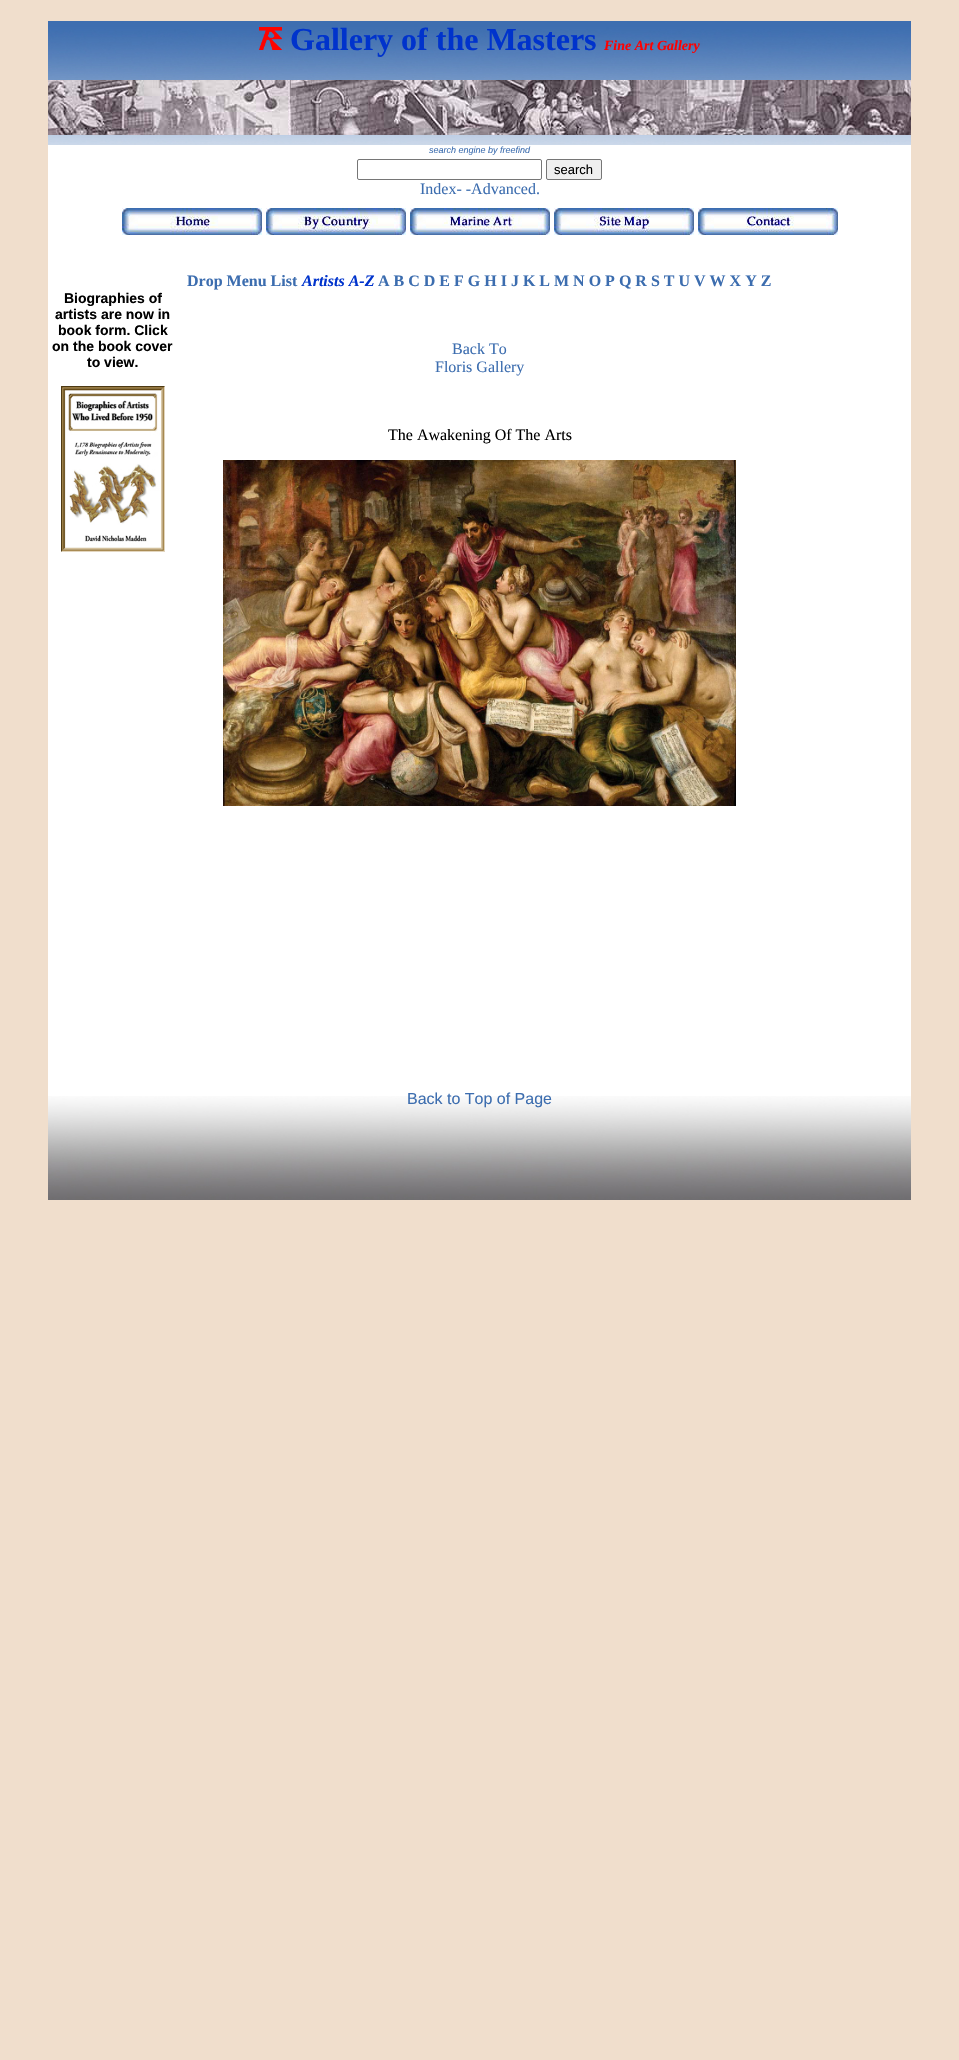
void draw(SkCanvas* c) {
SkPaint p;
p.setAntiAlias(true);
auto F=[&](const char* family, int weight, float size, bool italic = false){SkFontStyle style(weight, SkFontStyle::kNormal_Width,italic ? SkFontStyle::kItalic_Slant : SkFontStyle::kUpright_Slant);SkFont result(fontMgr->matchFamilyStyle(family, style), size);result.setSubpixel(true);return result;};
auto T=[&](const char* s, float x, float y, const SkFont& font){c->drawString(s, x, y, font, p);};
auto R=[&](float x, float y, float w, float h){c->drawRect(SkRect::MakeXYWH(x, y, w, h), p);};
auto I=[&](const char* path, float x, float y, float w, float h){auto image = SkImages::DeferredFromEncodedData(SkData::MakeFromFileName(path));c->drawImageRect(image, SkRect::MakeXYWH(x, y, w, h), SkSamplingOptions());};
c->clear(0xfff0decc);
p.setColor(0xffffffff);
R(48,145,863,951);
I("1.png",48,21,863,124);
I("2.png",259,27,23,23);
auto f1 = F("Liberation Serif",700,32);
p.setColor(0xff0033cc);
T("Gallery of the Masters",290,50,f1);
auto f2 = F("Liberation Serif",700,14,true);
p.setColor(0xffff0000);
T("Fine Art Gallery",604,50,f2);
I("3.png",48,80,863,55);
auto f3 = F("Liberation Sans",400,9,true);
p.setColor(0xff3c6daf);
T("search engine by freefind",429,153,f3);
p.setStroke(true);
p.setStrokeWidth(1);
p.setColor(0xff767676);
c->drawRoundRect(SkRect::MakeXYWH(357.5,159.5,184,20),1.5,1.5,p);
p.setStroke(false);
p.setColor(0xffefefef);
c->drawRoundRect(SkRect::MakeXYWH(546.5,159.5,55,20),1.5,1.5,p);
p.setStroke(true);
p.setColor(0xff767676);
c->drawRoundRect(SkRect::MakeXYWH(546.5,159.5,55,20),1.5,1.5,p);
auto f4 = F("Liberation Sans",400,13);
p.setStroke(false);
p.setColor(0xff000000);
T("search",554,174,f4);
auto f5 = F("Liberation Serif",400,16);
p.setColor(0xff3c6daf);
T("Index- -Advanced.",420,194,f5);
I("4.png",122,208,140,27);
I("5.png",266,208,140,27);
I("6.png",410,208,140,27);
I("7.png",554,208,140,27);
I("8.png",698,208,140,27);
auto f6 = F("Liberation Serif",700,16);
T("Drop Menu List",187,286,f6);
auto f7 = F("Liberation Serif",700,16,true);
p.setColor(0xff0033cc);
T("Artists A-Z",302,286,f7);
p.setColor(0xff3c6daf);
T("A B C D E F G H I J K L M N O P Q R S T U V W X Y Z",378,286,f6);
auto f8 = F("Liberation Sans",700,14);
p.setColor(0xff000000);
T("Biographies of",64,303,f8);
T("artists are now in",55,319,f8);
T("book form. Click",58,335,f8);
T("on the book cover",52,351,f8);
T("to view.",87,367,f8);
I("9.png",61,386,104,166);
p.setColor(0xff3c6daf);
T("Back To",452,354,f5);
T("Floris Gallery",435,372,f5);
p.setColor(0xff000000);
T("The Awakening Of The Arts",388,440,f5);
I("10.png",223,460,513,346);
I("11.png",48,1096,863,104);
auto f9 = F("Liberation Sans",400,16);
p.setColor(0xff3c6daf);
T("Back to Top of Page",407,1104,f9);
}
